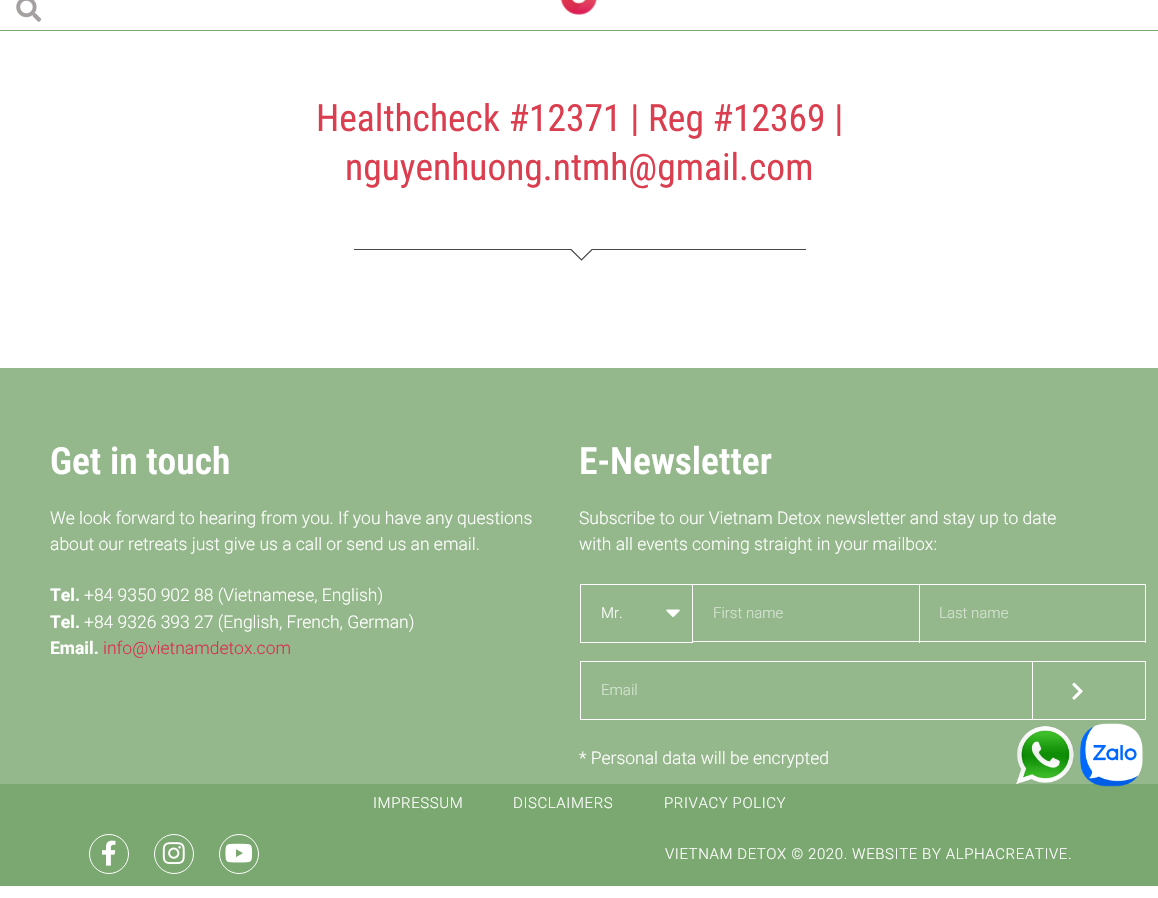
void draw(SkCanvas* c) {
SkPaint p;
p.setAntiAlias(true);
auto F=[&](const char* family, int weight, float size, bool italic = false){SkFontStyle style(weight, SkFontStyle::kNormal_Width,italic ? SkFontStyle::kItalic_Slant : SkFontStyle::kUpright_Slant);SkFont result(fontMgr->matchFamilyStyle(family, style), size);result.setSubpixel(true);return result;};
auto T=[&](const char* s, float x, float y, const SkFont& font){c->drawString(s, x, y, font, p);};
auto L=[&](const char* s, float x, float y, const SkFont& font, const SkPaint& ink, float letter, float word){std::vector<SkGlyphID> glyphs(font.countText(s, strlen(s), SkTextEncoding::kUTF8));std::vector<float> xs(glyphs.size());font.textToGlyphs(s, strlen(s), SkTextEncoding::kUTF8, glyphs);font.getXPos(glyphs, xs, x);float extra = 0;for (size_t i = 0; i < glyphs.size(); i++) {xs[i] += extra;extra += letter + word * (glyphs[i] == font.unicharToGlyph(' '));}c->drawTextBlob(SkTextBlob::MakeFromPosHGlyphs(glyphs, xs, y, font), 0, 0, ink);};
auto R=[&](float x, float y, float w, float h){c->drawRect(SkRect::MakeXYWH(x, y, w, h), p);};
auto I=[&](const char* path, float x, float y, float w, float h){auto image = SkImages::DeferredFromEncodedData(SkData::MakeFromFileName(path));c->drawImageRect(image, SkRect::MakeXYWH(x, y, w, h), SkSamplingOptions());};
auto P=[&](const char* data, bool evenOdd = false){SkPath result = *SkParsePath::FromSVGString(data);if (evenOdd) result.setFillType(SkPathFillType::kEvenOdd);return result;};
c->clear(0xffffffff);
p.setColor(0xff7ba770);
R(0,30,1158,1);
I("1.png",16,0,26,22);
I("2.png",560,0,37,15);
auto f1 = F("Roboto Condensed",400,37.5);
p.setColor(0xffdb3e4f);
T("Healthcheck #12371 | Reg #12369 |",316,131,f1);
T("nguyenhuong.ntmh@gmail.com",345,180,f1);
c->save();
c->clipRect(SkRect::MakeXYWH(354,249,452,12));
p.setStroke(true);
p.setStrokeWidth(1.2);
p.setColor(0xff464646);
c->drawPath(P("M354 249.5h217l10.5 10.5l10.5-10.5h214"),p);
c->restore();
p.setStroke(false);
p.setColor(0xff94b88b);
R(0,368,1158,416);
auto f2 = F("Roboto Condensed",600,37.5);
p.setColor(0xffffffff);
T("Get in touch",50,474,f2);
auto f3 = F("Roboto",300,17.5);
T("We look forward to hearing from you. If you have any questions",50,524,f3);
T("about our retreats just give us a call or send us an email.",50,550,f3);
auto f4 = F("Roboto",700,17.5);
T("Tel.",50,601,f4);
T("+84 9350 902 88 (Vietnamese, English)",84,601,f3);
T("Tel.",50,628,f4);
T("+84 9326 393 27 (English, French, German)",84,628,f3);
T("Email.",50,654,f4);
p.setColor(0xffdb2d50);
T("info@vietnamdetox.com",103,654,f3);
p.setColor(0xffffffff);
T("E-Newsletter",579,474,f2);
T("Subscribe to our Vietnam Detox newsletter and stay up to date",579,524,f3);
T("with all events coming straight in your mailbox:",579,550,f3);
p.setStroke(true);
p.setStrokeWidth(1);
c->drawRect(SkRect::MakeXYWH(580.5,584.5,112,58),p);
auto f5 = F("Roboto",300,15);
p.setStroke(false);
T("Mr.",601,618,f5);
I("3.png",666,609,14,9);
R(693,584,453,1);
R(919,584,1,59);
R(693,641,227,1);
p.setColor(0xffd4e3d1);
T("First name",713,618,f5);
p.setColor(0xffffffff);
R(1145,584,1,59);
R(920,641,226,1);
p.setColor(0xffd4e3d1);
T("Last name",939,618,f5);
p.setStroke(true);
p.setColor(0xffffffff);
c->drawRect(SkRect::MakeXYWH(580.5,661.5,452,58),p);
p.setStroke(false);
p.setColor(0xffd4e3d1);
T("Email",601,695,f5);
p.setColor(0xffffffff);
R(1033,661,113,1);
R(1145,661,1,59);
R(1033,719,113,1);
I("4.png",1072,682,11,18);
T("* Personal data will be encrypted",579,764,f3);
p.setColor(0xff7ba770);
R(0,784,1158,102);
I("5.png",1016,726,58,59);
I("6.png",1080,723,63,64);
p.setColor(0xffffffff);
L("IMPRESSUM",373,808,f5,p,.6,0);
L("DISCLAIMERS",513,808,f5,p,.6,0);
L("PRIVACY POLICY",664,808,f5,p,.6,0);
p.setStroke(true);
c->drawCircle(109,854,19.5,p);
I("7.png",102,840,14,26);
c->drawCircle(174,854,19.5,p);
I("8.png",162,842,23,23);
c->drawCircle(239,854,19.5,p);
I("9.png",225,843,28,20);
p.setStroke(false);
L("VIETNAM DETOX © 2020. WEBSITE BY ALPHACREATIVE.",665,859,f5,p,.6,0);
}
